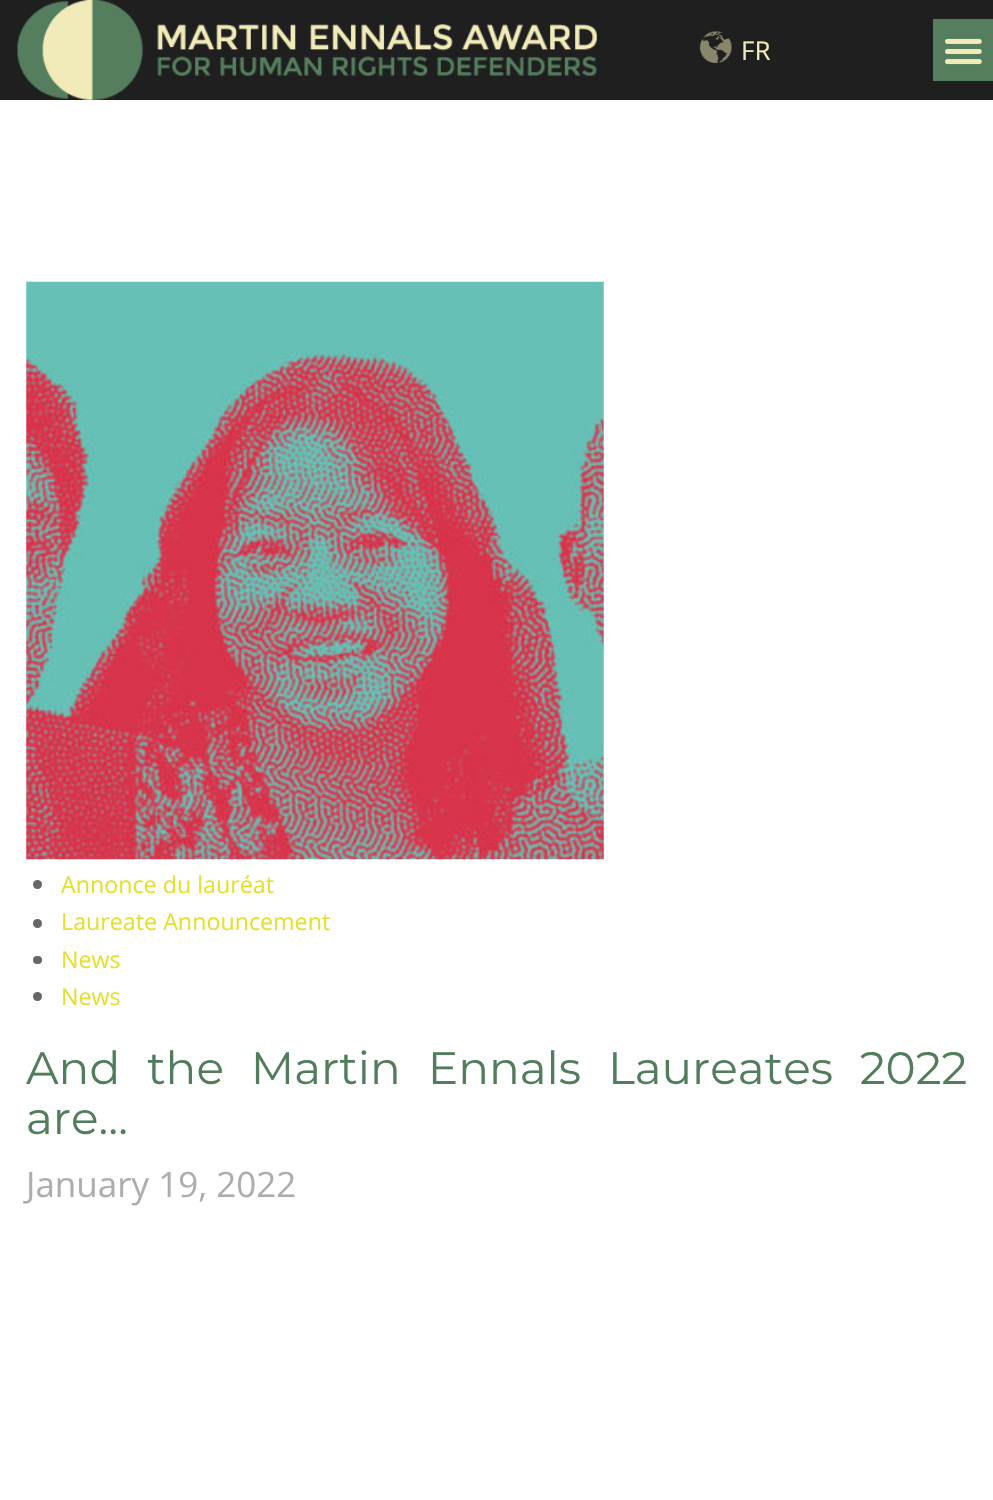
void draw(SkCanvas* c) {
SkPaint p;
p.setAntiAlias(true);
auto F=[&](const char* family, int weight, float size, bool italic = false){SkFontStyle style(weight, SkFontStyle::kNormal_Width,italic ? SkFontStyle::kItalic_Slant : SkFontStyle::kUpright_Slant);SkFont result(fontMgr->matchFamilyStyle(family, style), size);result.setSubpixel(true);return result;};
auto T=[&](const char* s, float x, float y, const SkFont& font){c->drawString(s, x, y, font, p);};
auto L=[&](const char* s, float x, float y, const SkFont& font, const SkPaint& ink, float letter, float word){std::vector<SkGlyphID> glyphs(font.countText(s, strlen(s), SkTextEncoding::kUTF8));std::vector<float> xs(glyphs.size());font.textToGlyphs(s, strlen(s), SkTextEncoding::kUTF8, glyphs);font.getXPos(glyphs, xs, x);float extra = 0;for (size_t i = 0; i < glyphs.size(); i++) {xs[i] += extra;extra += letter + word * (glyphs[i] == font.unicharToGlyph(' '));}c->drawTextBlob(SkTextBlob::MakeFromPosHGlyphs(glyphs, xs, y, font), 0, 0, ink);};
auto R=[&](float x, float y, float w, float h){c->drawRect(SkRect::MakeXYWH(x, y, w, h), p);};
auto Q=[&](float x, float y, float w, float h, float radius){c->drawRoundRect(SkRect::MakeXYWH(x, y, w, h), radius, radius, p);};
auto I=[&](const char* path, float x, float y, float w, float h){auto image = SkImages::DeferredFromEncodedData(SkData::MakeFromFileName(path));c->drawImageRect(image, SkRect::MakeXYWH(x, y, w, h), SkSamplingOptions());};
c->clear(0xffffffff);
p.setColor(0xff1f1f1f);
R(0,0,993,100);
I("1.png",17,0,580,100);
I("2.png",700,31,32,32);
auto f1 = F("Open Sans",400,26);
p.setColor(0xfff1ebba);
T("FR",741,60,f1);
p.setColor(0xff547e5e);
R(933,19,60,62);
I("3.png",945,38,37,27);
I("4.png",26,281,578,579);
p.setColor(0xff666666);
c->drawCircle(37.5,884.5,4.5,p);
auto f2 = F("Open Sans",400,23.25);
p.setColor(0xffe4df30);
T("Annonce du lauréat",61,893,f2);
p.setColor(0xff666666);
c->drawCircle(37.5,923.5,4.5,p);
p.setColor(0xffe4df30);
T("Laureate Announcement",61,930,f2);
p.setColor(0xff666666);
Q(33,956,9,8,4);
p.setColor(0xffe4df30);
T("News",61,968,f2);
p.setColor(0xff666666);
c->drawCircle(37.5,996.5,4.5,p);
p.setColor(0xffe4df30);
T("News",61,1005,f2);
auto f3 = F("Montserrat",400,45.5);
p.setColor(0xff527d5c);
L("And the Martin Ennals Laureates 2022",26,1084,f3,p,0,15);
T("are…",26,1134,f3);
auto f4 = F("Open Sans",400,35);
p.setColor(0xffadadad);
T("January 19, 2022",26,1197,f4);
}
